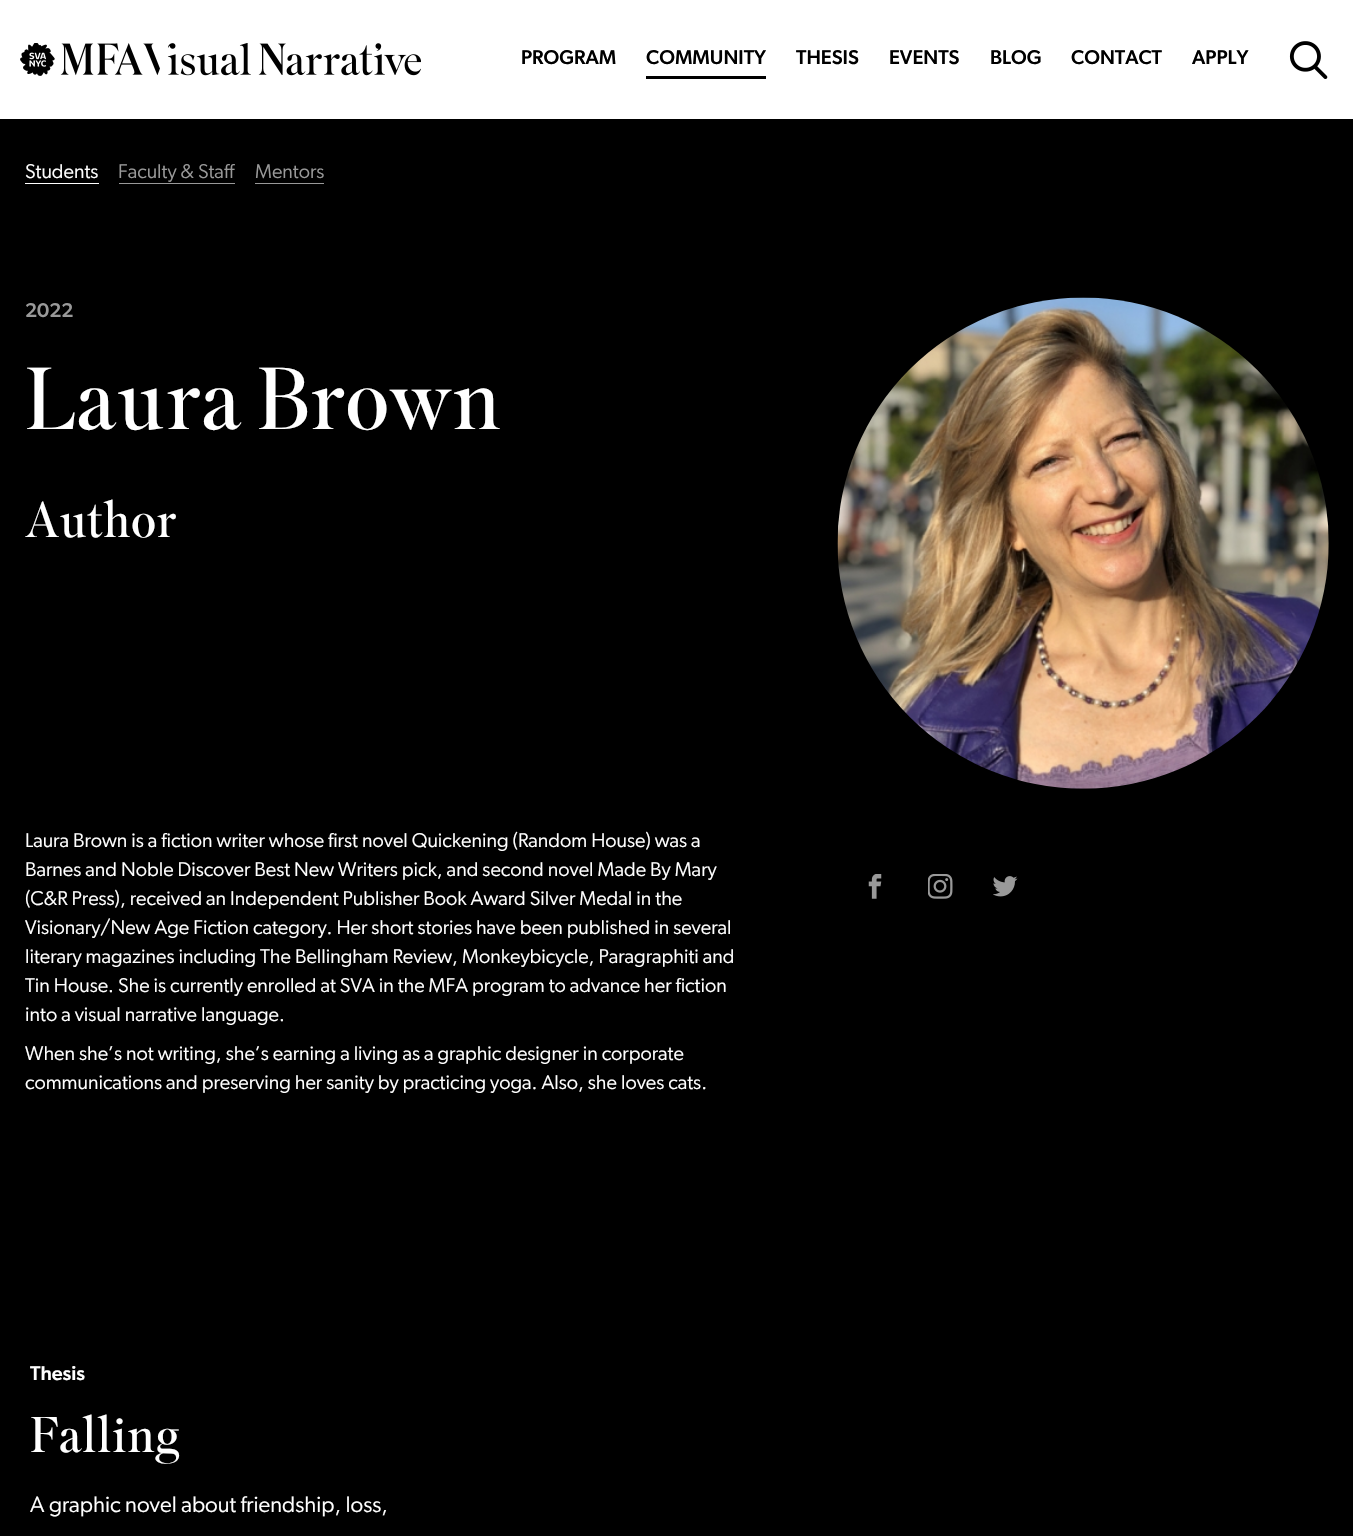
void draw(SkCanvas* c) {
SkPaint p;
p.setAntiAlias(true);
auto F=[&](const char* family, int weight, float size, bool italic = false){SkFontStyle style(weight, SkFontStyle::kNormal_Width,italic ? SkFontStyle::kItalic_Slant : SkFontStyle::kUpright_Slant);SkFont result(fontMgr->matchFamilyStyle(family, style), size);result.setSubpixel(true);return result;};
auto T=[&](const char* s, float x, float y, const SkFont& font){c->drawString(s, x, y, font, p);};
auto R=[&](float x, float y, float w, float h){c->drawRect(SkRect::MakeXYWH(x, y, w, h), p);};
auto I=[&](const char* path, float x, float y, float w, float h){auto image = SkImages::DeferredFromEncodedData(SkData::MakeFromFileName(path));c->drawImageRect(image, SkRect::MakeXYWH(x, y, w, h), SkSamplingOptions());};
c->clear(0xff000000);
p.setColor(0xffffffff);
R(0,0,1353,119);
I("1.png",20,43,401,33);
auto f1 = F("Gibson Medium",500,20);
p.setColor(0xff000000);
T("PROGRAM",521,64,f1);
T("COMMUNITY",646,64,f1);
R(646,76,120,3);
T("THESIS",796,64,f1);
T("EVENTS",889,64,f1);
T("BLOG",990,64,f1);
T("CONTACT",1071,64,f1);
T("APPLY",1192,64,f1);
I("2.png",1289,41,39,38);
auto f2 = F("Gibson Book",400,20);
p.setColor(0xffffffff);
T("Students",25,178,f2);
R(25,183,74,1);
p.setColor(0xff999999);
T("Faculty & Staff",118,178,f2);
R(119,183,116,1);
T("Mentors",255,178,f2);
R(255,183,69,1);
T("2022",25,317,f1);
auto f3 = F("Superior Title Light",300,87.5);
p.setColor(0xffffffff);
T("Laura Brown",25,429,f3);
auto f4 = F("Superior Title Light",300,50);
T("Author",25,537,f4);
I("3.png",837,297,492,492);
T("Laura Brown is a fiction writer whose first novel Quickening (Random House) was a",25,847,f2);
T("Barnes and Noble Discover Best New Writers pick, and second novel Made By Mary",25,876,f2);
T("(C&R Press), received an Independent Publisher Book Award Silver Medal in the",25,905,f2);
T("Visionary/New Age Fiction category. Her short stories have been published in several",25,934,f2);
T("literary magazines including The Bellingham Review, Monkeybicycle, Paragraphiti and",25,963,f2);
T("Tin House. She is currently enrolled at SVA in the MFA program to advance her fiction",25,992,f2);
T("into a visual narrative language.",25,1021,f2);
T("When she’s not writing, she’s earning a living as a graphic designer in corporate",25,1060,f2);
T("communications and preserving her sanity by practicing yoga. Also, she loves cats.",25,1089,f2);
I("4.png",868,874,14,25);
I("5.png",928,874,25,25);
I("6.png",993,876,25,21);
T("Thesis",30,1380,f1);
T("Falling",30,1452,f4);
auto f5 = F("Gibson Book",400,22.5);
T("A graphic novel about friendship, loss,",30,1512,f5);
}
